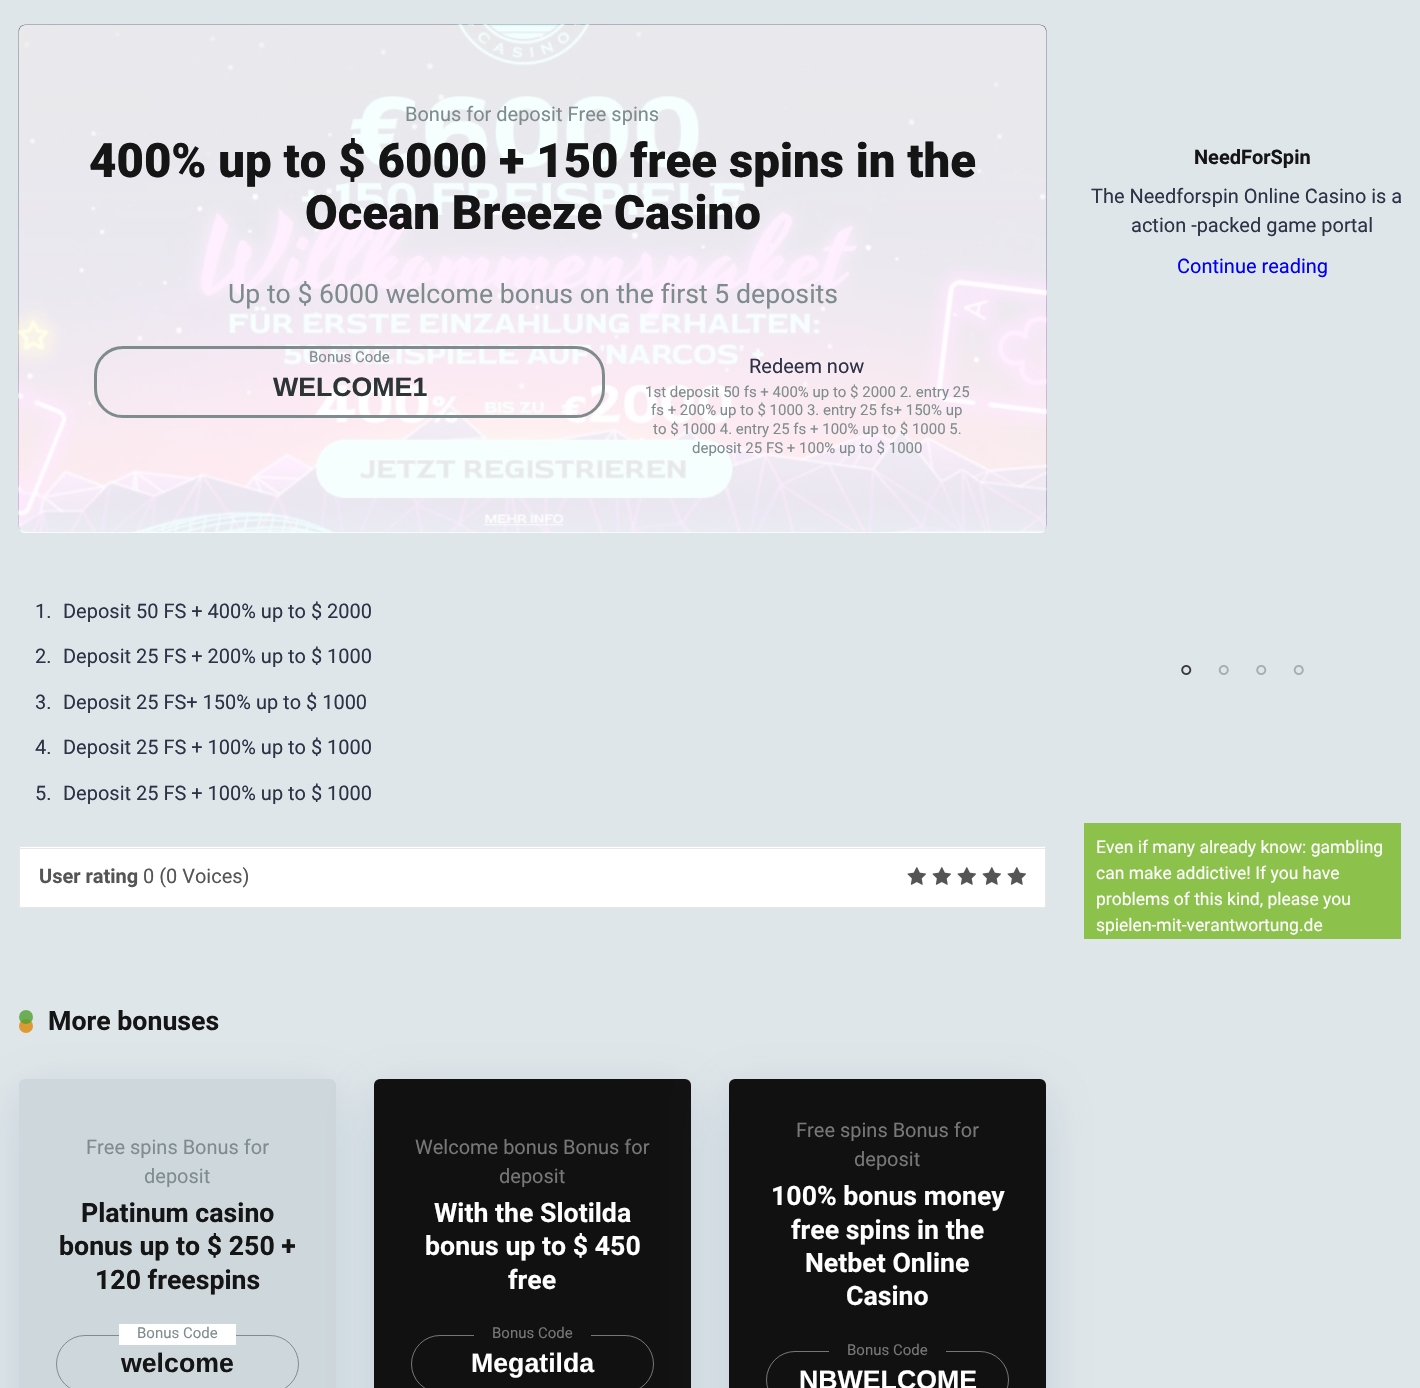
void draw(SkCanvas* c) {
SkPaint p;
p.setAntiAlias(true);
auto F=[&](const char* family, int weight, float size, bool italic = false){SkFontStyle style(weight, SkFontStyle::kNormal_Width,italic ? SkFontStyle::kItalic_Slant : SkFontStyle::kUpright_Slant);SkFont result(fontMgr->matchFamilyStyle(family, style), size);result.setSubpixel(true);return result;};
auto T=[&](const char* s, float x, float y, const SkFont& font){c->drawString(s, x, y, font, p);};
auto R=[&](float x, float y, float w, float h){c->drawRect(SkRect::MakeXYWH(x, y, w, h), p);};
auto Q=[&](float x, float y, float w, float h, float radius){c->drawRoundRect(SkRect::MakeXYWH(x, y, w, h), radius, radius, p);};
auto I=[&](const char* path, float x, float y, float w, float h){auto image = SkImages::DeferredFromEncodedData(SkData::MakeFromFileName(path));c->drawImageRect(image, SkRect::MakeXYWH(x, y, w, h), SkSamplingOptions());};
c->clear(0xffdfe6e9);
p.setColor(0xfff5f6fa);
Q(19,25,1027,508,6);
I("1.png",18,24,1029,509);
p.setColor(0xe6ffffff);
Q(19,25,1027,508,6);
auto f1 = F("Roboto",400,20);
p.setColor(0xff7f8c8d);
T("Bonus for deposit Free spins",405,121,f1);
auto f2 = F("Roboto",900,47.4);
p.setColor(0xff151515);
T("400% up to $ 6000 + 150 free spins in the",89,177,f2);
T("Ocean Breeze Casino",305,229,f2);
auto f3 = F("Roboto",400,26.7);
p.setColor(0xff7f8c8d);
T("Up to $ 6000 welcome bonus on the first 5 deposits",228,303,f3);
p.setStroke(true);
p.setStrokeWidth(3);
c->drawRoundRect(SkRect::MakeXYWH(95.5,347.5,508,69),27.5,27.5,p);
auto f4 = F("Roboto",400,15);
p.setStroke(false);
T("Bonus Code",309,362,f4);
auto f5 = F("Liberation Sans",700,26.7);
p.setColor(0xff2d3436);
T("WELCOME1",273,396,f5);
p.setColor(0xff2e3246);
T("Redeem now",749,373,f1);
p.setColor(0xff7f8c8d);
T("1st deposit 50 fs + 400% up to $ 2000 2. entry 25",645,397,f4);
T("fs + 200% up to $ 1000 3. entry 25 fs+ 150% up",651,415,f4);
T("to $ 1000 4. entry 25 fs + 100% up to $ 1000 5.",653,434,f4);
T("deposit 25 FS + 100% up to $ 1000",692,453,f4);
p.setColor(0xff2e3246);
T("1.",35,618,f1);
T("Deposit 50 FS + 400% up to $ 2000",63,618,f1);
T("2.",35,663,f1);
T("Deposit 25 FS + 200% up to $ 1000",63,663,f1);
T("3.",35,709,f1);
T("Deposit 25 FS+ 150% up to $ 1000",63,709,f1);
T("4.",35,754,f1);
T("Deposit 25 FS + 100% up to $ 1000",63,754,f1);
T("5.",35,800,f1);
T("Deposit 25 FS + 100% up to $ 1000",63,800,f1);
p.setColor(0xffffffff);
c->drawRect(SkRect::MakeXYWH(19.5,846.5,1026,61),p);
p.setStroke(true);
p.setStrokeWidth(1);
p.setColor(0xffe7e7e7);
c->drawRect(SkRect::MakeXYWH(19.5,846.5,1026,61),p);
p.setStroke(false);
R(20,848,1025,1);
auto f6 = F("Roboto",700,20);
p.setColor(0xff555555);
T("User rating",39,883,f6);
T("0 (0 Voices)",143,883,f1);
I("2.png",907,867,19,18);
I("2.png",932,867,19,18);
I("2.png",957,867,19,18);
I("2.png",982,867,19,18);
I("2.png",1007,867,19,18);
p.setColor(0x406d8dad);
p.setMaskFilter(SkMaskFilter::MakeBlur(kNormal_SkBlurStyle, 25));
c->drawRoundRect(SkRect::MakeXYWH(19,1091,317,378),6,6,p);
p.setMaskFilter(nullptr);
p.setColor(0xffdd9933);
c->drawCircle(26,1026,7,p);
p.setColor(0xcc4da031);
c->drawCircle(26,1017,7,p);
auto f7 = F("Roboto",700,26.7);
p.setColor(0xff151515);
T("More bonuses",48,1030,f7);
p.setColor(0xffced7db);
Q(19,1079,317,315,6);
p.setColor(0xff7f8c8d);
T("Free spins Bonus for",86,1154,f1);
T("deposit",144,1183,f1);
p.setColor(0xff151515);
T("Platinum casino",81,1222,f7);
T("bonus up to $ 250 +",59,1255,f7);
T("120 freespins",95,1289,f7);
p.setStroke(true);
p.setColor(0xff7f8c8d);
c->drawRoundRect(SkRect::MakeXYWH(56.5,1335.5,242,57),28.5,28.5,p);
p.setStroke(false);
p.setColor(0xffffffff);
R(119,1324,117,21);
p.setColor(0xff7f8c8d);
T("Bonus Code",137,1338,f4);
p.setColor(0xff151515);
T("welcome",121,1372,f5);
p.setColor(0x406d8dad);
p.setMaskFilter(SkMaskFilter::MakeBlur(kNormal_SkBlurStyle, 25));
c->drawRoundRect(SkRect::MakeXYWH(374,1091,317,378),6,6,p);
p.setMaskFilter(nullptr);
p.setColor(0xff111111);
Q(374,1079,317,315,6);
p.setColor(0xff777777);
T("Welcome bonus Bonus for",415,1154,f1);
T("deposit",499,1183,f1);
p.setColor(0xffffffff);
T("With the Slotilda",434,1222,f7);
T("bonus up to $ 450",425,1255,f7);
T("free",508,1289,f7);
p.setStroke(true);
p.setColor(0xff777777);
c->drawRoundRect(SkRect::MakeXYWH(411.5,1335.5,242,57),28.5,28.5,p);
p.setStroke(false);
p.setColor(0xff111111);
R(474,1335,117,1);
p.setColor(0xff777777);
T("Bonus Code",492,1338,f4);
p.setColor(0xffffffff);
T("Megatilda",471,1372,f5);
p.setColor(0x406d8dad);
p.setMaskFilter(SkMaskFilter::MakeBlur(kNormal_SkBlurStyle, 25));
c->drawRoundRect(SkRect::MakeXYWH(729,1091,317,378),6,6,p);
p.setMaskFilter(nullptr);
p.setColor(0xff111111);
Q(729,1079,317,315,6);
p.setColor(0xff777777);
T("Free spins Bonus for",796,1137,f1);
T("deposit",854,1166,f1);
p.setColor(0xffffffff);
T("100% bonus money",771,1205,f7);
T("free spins in the",791,1239,f7);
T("Netbet Online",805,1272,f7);
T("Casino",846,1305,f7);
p.setStroke(true);
p.setColor(0xff777777);
c->drawRoundRect(SkRect::MakeXYWH(766.5,1351.5,242,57),28.5,28.5,p);
p.setStroke(false);
p.setColor(0xff111111);
R(829,1351,117,1);
p.setColor(0xff777777);
T("Bonus Code",847,1355,f4);
p.setColor(0xffffffff);
T("NBWELCOME",799,1389,f5);
p.setColor(0xff151515);
T("NeedForSpin",1194,164,f6);
c->save();
c->clipRect(SkRect::MakeXYWH(1084,125,317,526));
p.setColor(0xff2e3246);
T("The Needforspin Online Casino is a",1091,203,f1);
c->restore();
T("action -packed game portal",1131,232,f1);
p.setColor(0xff0000ee);
T("Continue reading",1177,273,f1);
I("3.png",1181,665,11,10);
I("4.png",1218,665,11,10);
I("5.png",1256,665,11,10);
I("4.png",1293,665,11,10);
p.setColor(0xff8cc14c);
R(1084,823,317,116);
auto f8 = F("Roboto",400,17.5);
p.setColor(0xffffffff);
T("Even if many already know: gambling",1096,853,f8);
T("can make addictive! If you have",1096,879,f8);
T("problems of this kind, please you",1096,905,f8);
T("spielen-mit-verantwortung.de",1096,931,f8);
}
